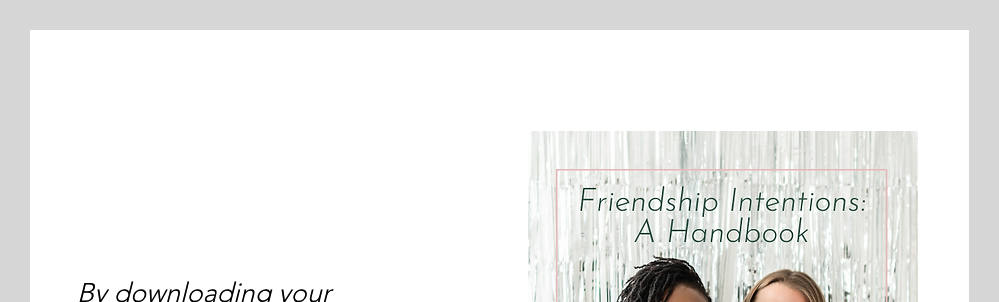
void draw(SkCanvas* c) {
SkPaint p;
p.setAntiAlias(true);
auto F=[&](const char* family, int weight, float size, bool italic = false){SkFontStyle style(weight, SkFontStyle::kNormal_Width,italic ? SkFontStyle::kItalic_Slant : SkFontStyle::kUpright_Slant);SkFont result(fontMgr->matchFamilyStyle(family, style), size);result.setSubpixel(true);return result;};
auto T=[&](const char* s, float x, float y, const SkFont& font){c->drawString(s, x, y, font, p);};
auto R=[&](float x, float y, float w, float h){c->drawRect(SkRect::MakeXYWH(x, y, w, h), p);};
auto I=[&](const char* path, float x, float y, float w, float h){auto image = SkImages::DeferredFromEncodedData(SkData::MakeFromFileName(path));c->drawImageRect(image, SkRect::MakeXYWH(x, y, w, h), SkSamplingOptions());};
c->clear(0xffd6d6d6);
p.setColor(0xffffffff);
R(30,30,939,272);
auto f1 = F("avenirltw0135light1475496",300,27,true);
p.setColor(0xff000000);
T("By downloading your",77,302,f1);
I("1.png",528,131,390,171);
}
